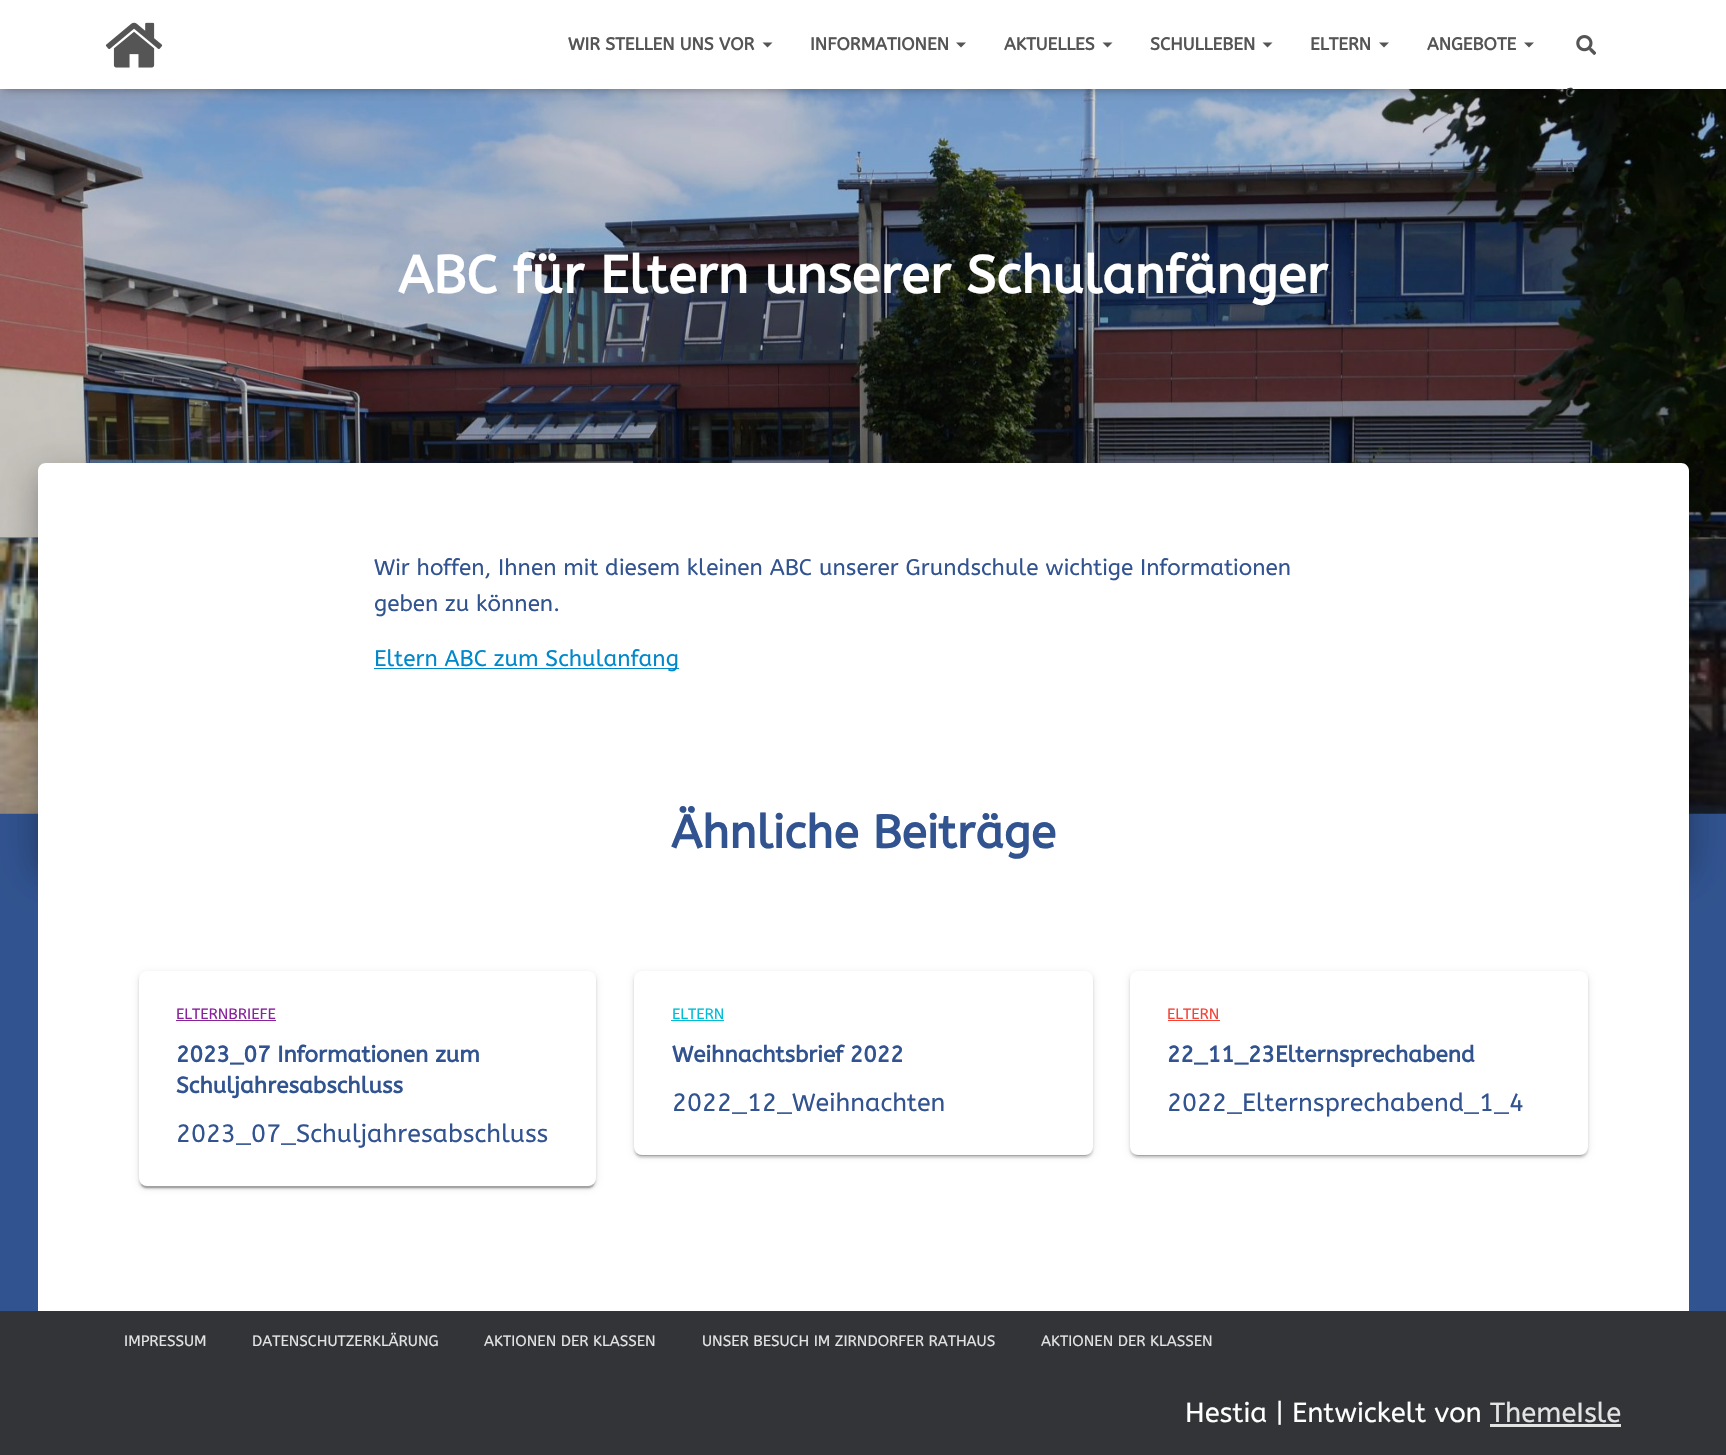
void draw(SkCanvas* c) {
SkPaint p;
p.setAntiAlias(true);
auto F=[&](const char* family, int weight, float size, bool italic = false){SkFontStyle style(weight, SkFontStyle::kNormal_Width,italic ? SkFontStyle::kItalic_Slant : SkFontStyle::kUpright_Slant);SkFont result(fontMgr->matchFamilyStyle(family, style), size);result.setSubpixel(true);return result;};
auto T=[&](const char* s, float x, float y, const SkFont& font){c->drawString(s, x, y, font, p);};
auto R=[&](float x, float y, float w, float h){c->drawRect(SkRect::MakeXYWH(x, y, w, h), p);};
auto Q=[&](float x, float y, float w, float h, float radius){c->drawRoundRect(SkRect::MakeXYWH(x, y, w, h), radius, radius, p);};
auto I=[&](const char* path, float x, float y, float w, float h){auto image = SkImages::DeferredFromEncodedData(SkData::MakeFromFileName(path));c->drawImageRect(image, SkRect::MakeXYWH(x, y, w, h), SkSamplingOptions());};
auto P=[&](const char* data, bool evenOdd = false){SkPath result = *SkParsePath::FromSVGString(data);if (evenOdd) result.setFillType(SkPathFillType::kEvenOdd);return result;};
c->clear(0xff315390);
I("1.png",0,537,1726,277);
I("4.png",0,89,1726,449);
p.setColor(0x26000000);
R(0,89,1726,449);
p.setColor(0x1a000000);
p.setMaskFilter(SkMaskFilter::MakeBlur(kNormal_SkBlurStyle, 3));
c->drawRect(SkRect::MakeXYWH(3,8,1721,83),p);
p.setMaskFilter(nullptr);
p.setColor(0x1f000000);
p.setMaskFilter(SkMaskFilter::MakeBlur(kNormal_SkBlurStyle, 6));
c->drawRect(SkRect::MakeXYWH(0,1,1726,89),p);
p.setMaskFilter(nullptr);
p.setColor(0x6b000000);
p.setMaskFilter(SkMaskFilter::MakeBlur(kNormal_SkBlurStyle, 6));
c->drawRect(SkRect::MakeXYWH(8,9,1711,74),p);
p.setMaskFilter(nullptr);
p.setColor(0xffffffff);
R(0,0,1726,89);
I("2.png",105,22,58,46);
auto f1 = F("ABeeZee",700,17.5);
p.setColor(0xff555555);
T("WIR STELLEN UNS VOR",568,50,f1);
c->drawPath(P("M762.5 42.5h10l-5 5z"),p);
T("INFORMATIONEN",810,50,f1);
c->drawPath(P("M956 42.5h10l-5 5z"),p);
T("AKTUELLES",1004,50,f1);
c->drawPath(P("M1102.5 42.5h10l-5 5z"),p);
T("SCHULLEBEN",1150,50,f1);
c->drawPath(P("M1262.5 42.5h10l-5 5z"),p);
T("ELTERN",1310,50,f1);
c->drawPath(P("M1379 42.5h10l-5 5z"),p);
T("ANGEBOTE",1427,50,f1);
c->drawPath(P("M1524 42.5h10l-5 5z"),p);
I("3.png",1576,35,20,20);
auto f2 = F("ABeeZee",400,17.5);
p.setColor(0xff3e413d);
T("c",1565,97,f2);
p.setColor(0xff596a80);
T("n",1565,172,f2);
auto f3 = F("ABeeZee",700,52.5);
p.setColor(0xffffffff);
T("ABC für Eltern unserer Schulanfänger",398,293,f3);
p.setColor(0x33000000);
p.setMaskFilter(SkMaskFilter::MakeBlur(kNormal_SkBlurStyle, 6));
c->drawRoundRect(SkRect::MakeXYWH(44,479,1639,384),1,1,p);
p.setMaskFilter(nullptr);
p.setColor(0x1f000000);
p.setMaskFilter(SkMaskFilter::MakeBlur(kNormal_SkBlurStyle, 19));
c->drawRoundRect(SkRect::MakeXYWH(31,464,1664,409),14,14,p);
p.setMaskFilter(nullptr);
p.setColor(0x24000000);
p.setMaskFilter(SkMaskFilter::MakeBlur(kNormal_SkBlurStyle, 15));
c->drawRoundRect(SkRect::MakeXYWH(35,480,1656,401),10,10,p);
p.setMaskFilter(nullptr);
p.setColor(0xffffffff);
c->drawPath(P("M46 463h1635c4.5 0 8 3.5 8 8v388h-1651v-388c0-4.5 3.5-8 8-8z"),p);
auto f4 = F("ABeeZee",400,22.5);
p.setColor(0xff315390);
T("Wir hoffen, Ihnen mit diesem kleinen ABC unserer Grundschule wichtige Informationen",374,575,f4);
T("geben zu können.",374,611,f4);
p.setColor(0xff0088cc);
R(374,668,305,1);
T("Eltern ABC zum Schulanfang",374,666,f4);
p.setColor(0xffffffff);
R(38,859,1651,452);
auto f5 = F("ABeeZee",700,46.25);
p.setColor(0xff315390);
T("Ähnliche Beiträge",671,848,f5);
p.setColor(0x1f000000);
p.setMaskFilter(SkMaskFilter::MakeBlur(kNormal_SkBlurStyle, 3));
c->drawRoundRect(SkRect::MakeXYWH(139,973,457,215),8,8,p);
p.setMaskFilter(nullptr);
p.setColor(0x33000000);
p.setMaskFilter(SkMaskFilter::MakeBlur(kNormal_SkBlurStyle, .5));
c->drawRoundRect(SkRect::MakeXYWH(141,978,453,210),5,5,p);
p.setMaskFilter(nullptr);
p.setColor(0x24000000);
p.setMaskFilter(SkMaskFilter::MakeBlur(kNormal_SkBlurStyle, 1));
c->drawRoundRect(SkRect::MakeXYWH(139,974,457,215),8,8,p);
p.setMaskFilter(nullptr);
p.setColor(0xffffffff);
Q(139,971,457,215,8);
auto f6 = F("ABeeZee",400,15);
p.setColor(0xff89229b);
T("ELTERNBRIEFE",176,1019,f6);
R(176,1020,100,1);
auto f7 = F("ABeeZee",700,22.5);
p.setColor(0xff315390);
T("2023_07 Informationen zum",176,1062,f7);
T("Schuljahresabschluss",176,1093,f7);
auto f8 = F("ABeeZee",400,25);
T("2023_07_Schuljahresabschluss",176,1142,f8);
p.setColor(0x1f000000);
p.setMaskFilter(SkMaskFilter::MakeBlur(kNormal_SkBlurStyle, 3));
c->drawRoundRect(SkRect::MakeXYWH(634,973,459,183),8,8,p);
p.setMaskFilter(nullptr);
p.setColor(0x33000000);
p.setMaskFilter(SkMaskFilter::MakeBlur(kNormal_SkBlurStyle, .5));
c->drawRoundRect(SkRect::MakeXYWH(636,978,454,178),5,5,p);
p.setMaskFilter(nullptr);
p.setColor(0x24000000);
p.setMaskFilter(SkMaskFilter::MakeBlur(kNormal_SkBlurStyle, 1));
c->drawRoundRect(SkRect::MakeXYWH(634,974,459,184),8,8,p);
p.setMaskFilter(nullptr);
p.setColor(0xffffffff);
Q(634,971,459,184,8);
p.setColor(0xff00bcd4);
T("ELTERN",672,1019,f6);
R(671,1020,53,1);
p.setColor(0xff315390);
T("Weihnachtsbrief 2022",672,1062,f7);
T("2022_12_Weihnachten",672,1111,f8);
p.setColor(0x1f000000);
p.setMaskFilter(SkMaskFilter::MakeBlur(kNormal_SkBlurStyle, 3));
c->drawRoundRect(SkRect::MakeXYWH(1130,973,458,183),8,8,p);
p.setMaskFilter(nullptr);
p.setColor(0x33000000);
p.setMaskFilter(SkMaskFilter::MakeBlur(kNormal_SkBlurStyle, .5));
c->drawRoundRect(SkRect::MakeXYWH(1133,978,452,178),5,5,p);
p.setMaskFilter(nullptr);
p.setColor(0x24000000);
p.setMaskFilter(SkMaskFilter::MakeBlur(kNormal_SkBlurStyle, 1));
c->drawRoundRect(SkRect::MakeXYWH(1130,974,458,184),8,8,p);
p.setMaskFilter(nullptr);
p.setColor(0xffffffff);
Q(1130,971,458,184,8);
p.setColor(0xfff44336);
T("ELTERN",1167,1019,f6);
R(1168,1020,52,1);
p.setColor(0xff315390);
T("22_11_23Elternsprechabend",1167,1062,f7);
T("2022_Elternsprechabend_1_4",1167,1111,f8);
p.setColor(0xff323437);
R(0,1311,1726,144);
p.setColor(0xffe2e3e3);
T("IMPRESSUM",124,1346,f6);
T("DATENSCHUTZERKLÄRUNG",252,1346,f6);
T("AKTIONEN DER KLASSEN",484,1346,f6);
T("UNSER BESUCH IM ZIRNDORFER RATHAUS",702,1346,f6);
T("AKTIONEN DER KLASSEN",1041,1346,f6);
auto f9 = F("ABeeZee",400,27.5);
p.setColor(0xffffffff);
T("Hestia | Entwickelt von",1185,1422,f9);
p.setColor(0xffe2e3e3);
T("ThemeIsle",1490,1422,f9);
R(1490,1424,131,3);
}
